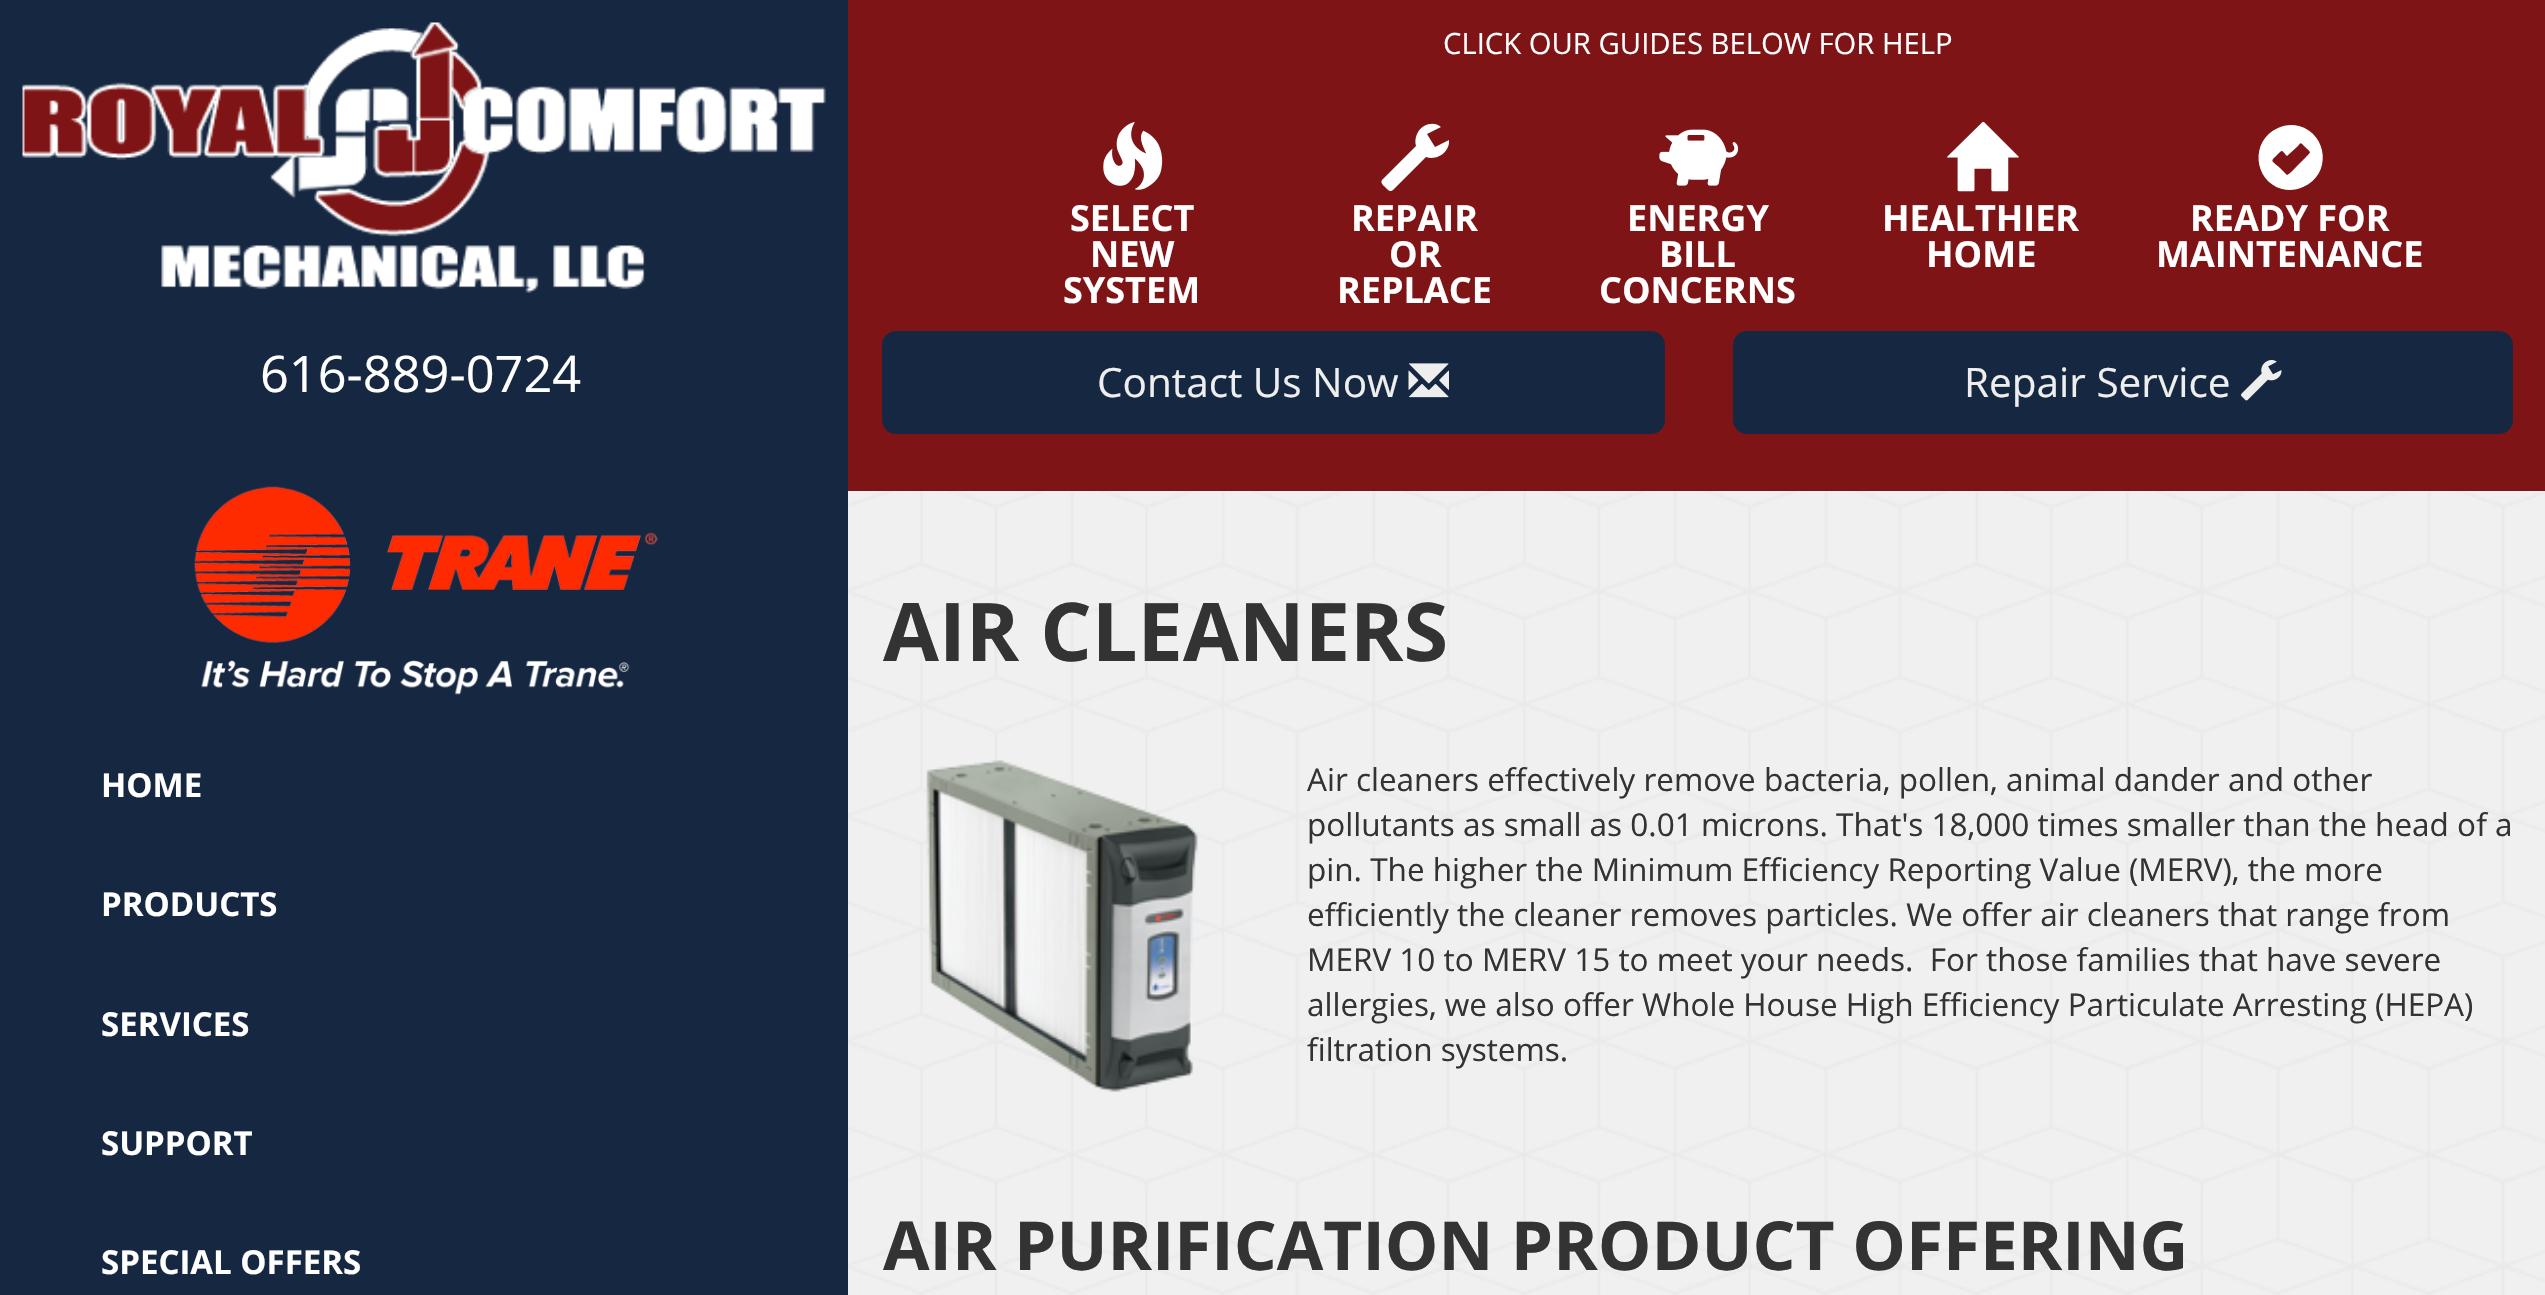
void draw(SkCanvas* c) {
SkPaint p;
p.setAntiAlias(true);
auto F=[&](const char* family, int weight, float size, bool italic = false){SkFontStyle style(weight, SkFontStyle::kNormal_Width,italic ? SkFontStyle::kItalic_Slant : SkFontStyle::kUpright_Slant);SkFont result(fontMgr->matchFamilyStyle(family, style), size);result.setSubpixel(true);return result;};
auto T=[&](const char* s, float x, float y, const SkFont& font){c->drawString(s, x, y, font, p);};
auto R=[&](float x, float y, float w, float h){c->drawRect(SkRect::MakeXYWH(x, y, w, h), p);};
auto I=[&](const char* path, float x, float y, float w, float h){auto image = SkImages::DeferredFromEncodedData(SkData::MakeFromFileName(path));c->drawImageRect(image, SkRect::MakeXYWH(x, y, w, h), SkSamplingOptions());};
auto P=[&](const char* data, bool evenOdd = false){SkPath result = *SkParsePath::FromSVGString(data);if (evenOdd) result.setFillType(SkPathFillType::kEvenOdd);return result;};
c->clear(0xff162741);
I("1.png",22,22,804,271);
auto f1 = F("Open Sans",400,50.5);
p.setColor(0xffffffff);
T("616-889-0724",260,392,f1);
I("2.png",194,486,464,209);
auto f2 = F("Open Sans",700,33);
T("HOME",101,797,f2);
T("PRODUCTS",101,916,f2);
T("SERVICES",101,1036,f2);
T("SUPPORT",101,1155,f2);
T("SPECIAL OFFERS",101,1274,f2);
p.setColor(0xfff0f0f0);
R(848,491,1697,804);
I("3.png",848,491,1697,804);
p.setColor(0xff7f1416);
R(848,0,1697,491);
auto f3 = F("Open Sans",400,29.25);
p.setColor(0xffffffff);
T("CLICK OUR GUIDES BELOW FOR HELP",1443,54,f3);
I("4.png",1103,122,60,68);
auto f4 = F("Open Sans",700,36);
T("SELECT",1070,231,f4);
T("NEW",1090,267,f4);
T("SYSTEM",1063,303,f4);
c->drawPath(P("M1424 126c6-3 12-3 17 1l-14 7l8 13l14-7c1 12-12 21-23 17l-33 33c-3 3-6-1-8-3c-1-1-5-4-3-7l34-34c-2-7 1-16 8-20z"),p);
T("REPAIR",1351,231,f4);
T("OR",1389,267,f4);
T("REPLACE",1337,303,f4);
I("5.png",1659,129,80,57);
T("ENERGY",1627,231,f4);
T("BILL",1659,267,f4);
T("CONCERNS",1599,303,f4);
I("6.png",1947,121,72,71);
T("HEALTHIER",1882,231,f4);
T("HOME",1926,267,f4);
c->drawPath(P("M2278 128c6-3 14-4 21-2c29 8 33 49 4 61c-6 3-14 4-21 2c-29-8-32-49-4-61zm9 28c-6-6-4-7-10-1c-7 7-6 5 3 13l7 7c2 0 10-9 12-11l7-7c6-6 5-4-2-11c-3-3-3-4-6 0z"),p);
T("READY FOR",2190,231,f4);
T("MAINTENANCE",2156,267,f4);
p.setColor(0xff162841);
c->drawRoundRect(SkRect::MakeXYWH(883,332,781,101),13,13,p);
p.setStroke(true);
p.setStrokeWidth(2);
c->drawRoundRect(SkRect::MakeXYWH(883,332,781,101),13,13,p);
auto f5 = F("Open Sans",400,40.5);
p.setStroke(false);
p.setColor(0xffeeeeee);
T("Contact Us Now",1097,397,f5);
I("7.png",1408,363,41,35);
p.setColor(0xff162841);
c->drawRoundRect(SkRect::MakeXYWH(1734,332,778,101),13,13,p);
p.setStroke(true);
c->drawRoundRect(SkRect::MakeXYWH(1734,332,778,101),13,13,p);
p.setStroke(false);
p.setColor(0xffeeeeee);
T("Repair Service",1964,397,f5);
I("8.png",2241,360,41,41);
auto f6 = F("Open Sans",700,81);
p.setColor(0xff333333);
T("AIR CLEANERS",883,661,f6);
I("9.png",926,760,272,332);
auto f7 = F("Open Sans",400,31.5);
T("Air cleaners effectively remove bacteria, pollen, animal dander and other",1307,791,f7);
T("pollutants as small as 0.01 microns. That's 18,000 times smaller than the head of a",1307,836,f7);
T("pin. The higher the Minimum Efficiency Reporting Value (MERV), the more",1307,881,f7);
T("efficiently the cleaner removes particles. We offer air cleaners that range from",1307,926,f7);
T("MERV 10 to MERV 15 to meet your needs.  For those families that have severe",1307,971,f7);
T("allergies, we also offer Whole House High Efficiency Particulate Arresting (HEPA)",1307,1016,f7);
T("filtration systems.",1307,1061,f7);
auto f8 = F("Open Sans",700,67.5);
T("AIR PURIFICATION PRODUCT OFFERING",883,1270,f8);
}
